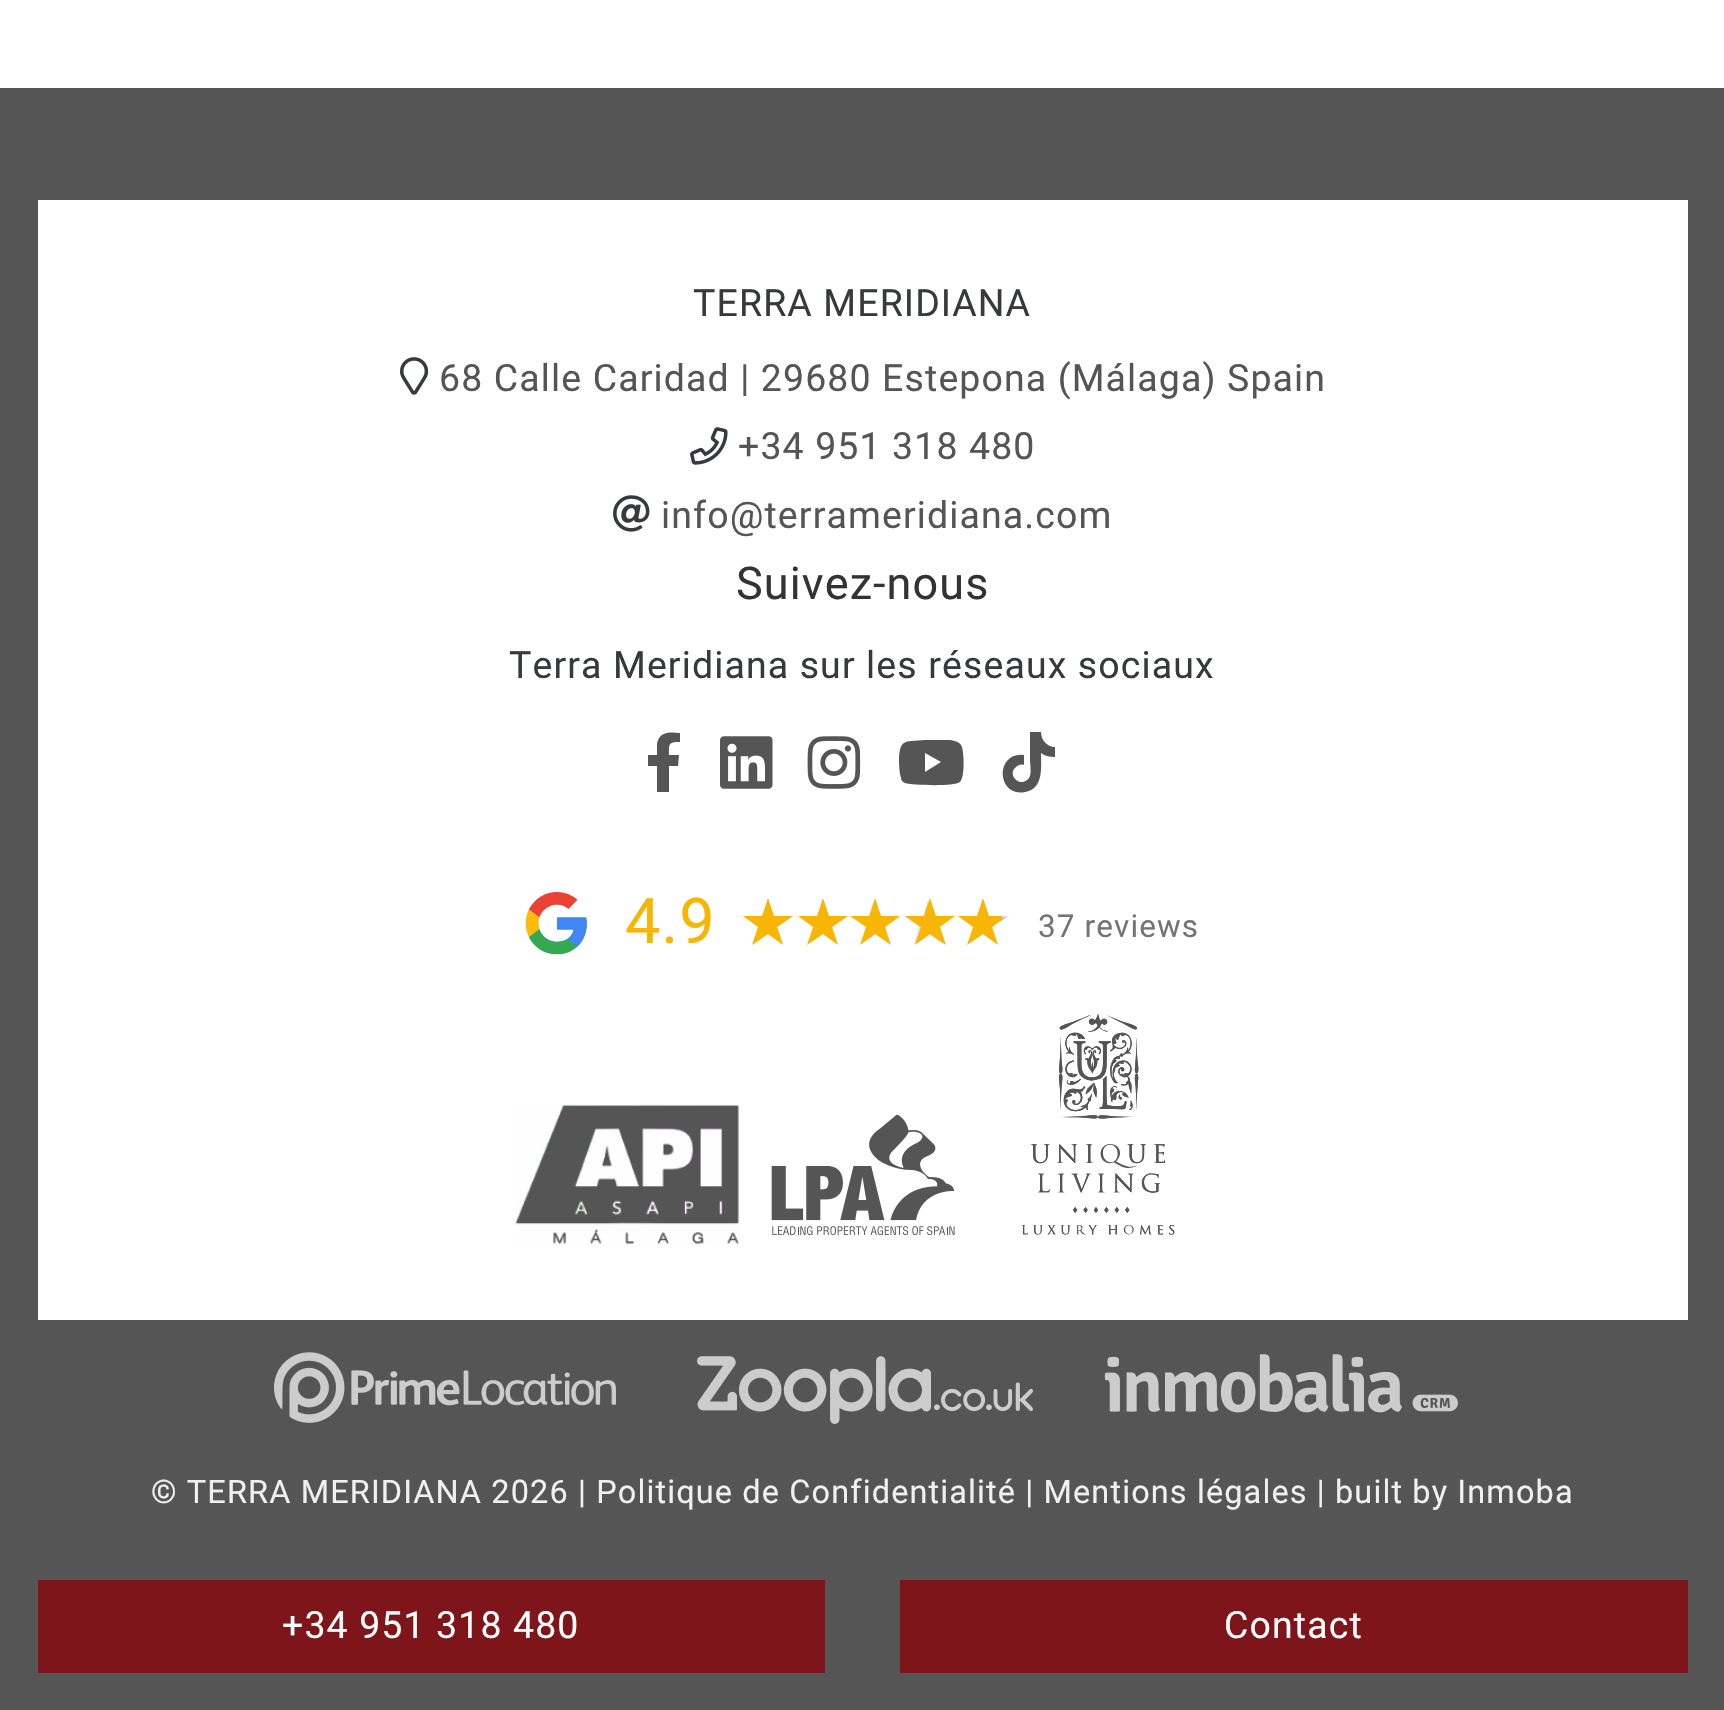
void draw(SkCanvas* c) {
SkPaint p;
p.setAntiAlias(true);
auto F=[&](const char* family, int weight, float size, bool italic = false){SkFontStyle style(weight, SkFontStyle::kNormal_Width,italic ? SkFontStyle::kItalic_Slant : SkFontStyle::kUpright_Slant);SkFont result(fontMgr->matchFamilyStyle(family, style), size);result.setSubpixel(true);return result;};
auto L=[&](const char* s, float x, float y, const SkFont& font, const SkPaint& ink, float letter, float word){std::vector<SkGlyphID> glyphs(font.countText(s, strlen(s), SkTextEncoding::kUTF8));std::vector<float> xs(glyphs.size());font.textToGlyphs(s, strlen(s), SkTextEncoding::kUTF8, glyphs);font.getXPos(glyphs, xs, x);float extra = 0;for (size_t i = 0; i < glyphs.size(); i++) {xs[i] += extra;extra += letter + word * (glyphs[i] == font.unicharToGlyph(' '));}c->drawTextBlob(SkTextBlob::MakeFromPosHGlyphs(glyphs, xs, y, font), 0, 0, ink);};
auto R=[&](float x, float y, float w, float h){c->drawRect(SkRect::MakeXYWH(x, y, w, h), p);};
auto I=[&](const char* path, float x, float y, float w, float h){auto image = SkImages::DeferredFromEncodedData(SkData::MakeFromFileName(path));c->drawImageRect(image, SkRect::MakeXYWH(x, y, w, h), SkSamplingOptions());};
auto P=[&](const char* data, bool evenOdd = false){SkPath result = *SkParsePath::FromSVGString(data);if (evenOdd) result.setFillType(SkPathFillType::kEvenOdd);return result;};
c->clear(0xffffffff);
p.setColor(0xff555555);
R(0,88,1724,1622);
p.setColor(0xffffffff);
R(38,200,1650,1120);
auto f1 = F("Roboto",400,37.5);
p.setColor(0xff373a3c);
L("TERRA MERIDIANA",693,316,f1,p,1.12,0);
I("1.png",400,357,29,38);
p.setColor(0xff555555);
L("68 Calle Caridad | 29680 Estepona (Málaga) Spain",439,391,f1,p,1.12,0);
I("2.png",690,427,38,38);
L("+34 951 318 480",738,459,f1,p,1.12,0);
I("3.png",613,495,37,37);
L("info@terrameridiana.com",661,528,f1,p,1.12,0);
auto f2 = F("Roboto",400,45);
p.setColor(0xff333333);
L("Suivez-nous",736,599,f2,p,1.12,0);
p.setColor(0xff373a3c);
L("Terra Meridiana sur les réseaux sociaux",509,678,f1,p,1.12,0);
p.setColor(0xff555555);
c->drawPath(P("M678 766h-9v26h-12v-26h-9v-11h9v-11c2-13 13-12 23-11v9c-12 0-11 2-11 13h10z"),p);
I("4.png",720,736,53,53);
I("5.png",807,736,54,53);
c->drawPath(P("M962 747c2 7 3 30-2 35c-6 5-50 3-55 1c-2-1-4-2-4-5c-2-6-2-14-2-20c1-10 1-16 12-17l14-1h19c6 0 16 0 18 7zm-37 25l16-10l-16-9z"),p);
c->drawPath(P("M1055 757c-5 0-10-1-14-4c0 14 3 36-16 39c-28 6-31-40-1-37v10c-3-1-6 0-8 2c-10 8 5 22 13 11c3-4 1-13 1-18v-28h11c0 8 6 15 14 15z"),p);
I("6.png",525,892,62,63);
auto f3 = F("Roboto",400,63);
p.setColor(0xfff7b603);
L("4.9",625,943,f3,p,1.12,0);
p.setColor(0xffdddddd);
c->drawPath(P("M777 927l15-10h-18l-6-17l-5 17h-18l14 10l-5 17l14-10l15 10z"),p);
p.setColor(0xfff7b603);
c->drawPath(P("M777 927l16-11h-19l-6-18l-6 18h-19l15 11l-6 18l16-11l15 11z"),p);
c->save();
c->clipRect(SkRect::MakeXYWH(798,900,47,45));
p.setColor(0xffdddddd);
c->drawPath(P("M832 927l15-10h-18l-6-17l-6 17h-18l15 10l-6 17l15-10l15 10z"),p);
c->restore();
p.setColor(0xfff7b603);
c->drawPath(P("M832 927l16-11h-19l-6-18l-6 18h-19l15 11l-6 18l16-11l15 11z"),p);
p.setColor(0xffdddddd);
c->drawPath(P("M885 927l14-10h-18l-5-17l-6 17h-18l15 10l-6 17l15-10l14 10z"),p);
p.setColor(0xfff7b603);
c->drawPath(P("M885 927l15-11h-19l-6-18l-6 18h-19l16 11l-6 18l15-11l16 11z"),p);
p.setColor(0xffdddddd);
c->drawPath(P("M937 927l15-10h-18l-6-17l-5 17h-18l14 10l-5 17l14-10l15 10z"),p);
p.setColor(0xfff7b603);
c->drawPath(P("M940 927l15-11h-19l-6-18l-6 18h-19l16 11l-6 18l15-11l16 11z"),p);
p.setColor(0xffdddddd);
c->drawPath(P("M992 927l15-10h-18l-6-17l-5 17h-19l15 10l-5 17l14-10l15 10z"),p);
p.setColor(0xffc9c9c9);
c->drawPath(P("M1002 916.5v4l5.5-4z"),p);
p.setColor(0xfff7b603);
c->drawPath(P("M1002 916h-13l-6-18l-6 18h-19l15 11l-6 18l16-11l15 11l-6-18l10-7z"),p);
auto f4 = F("Roboto",400,31.5);
p.setColor(0xff70757a);
L("37 reviews",1038,937,f4,p,1.12,0);
I("7.png",515,1104,224,141);
I("8.png",771,1114,184,122);
I("9.png",1022,1014,153,221);
I("10.png",274,1352,342,71);
I("11.png",697,1356,336,68);
I("12.png",1104,1354,354,59);
auto f5 = F("Roboto",400,32.5);
p.setColor(0xfff0f0f0);
L("© TERRA MERIDIANA 2026 | Politique de Confidentialité | Mentions légales | built by Inmoba",151,1503,f5,p,1.12,0);
p.setColor(0xff7d151a);
R(38,1580,787,93);
p.setColor(0xffffffff);
L("+34 951 318 480",282,1638,f1,p,1.12,0);
p.setColor(0xff7d151a);
R(900,1580,788,93);
p.setColor(0xffffffff);
L("Contact",1224,1638,f1,p,1.12,0);
}
